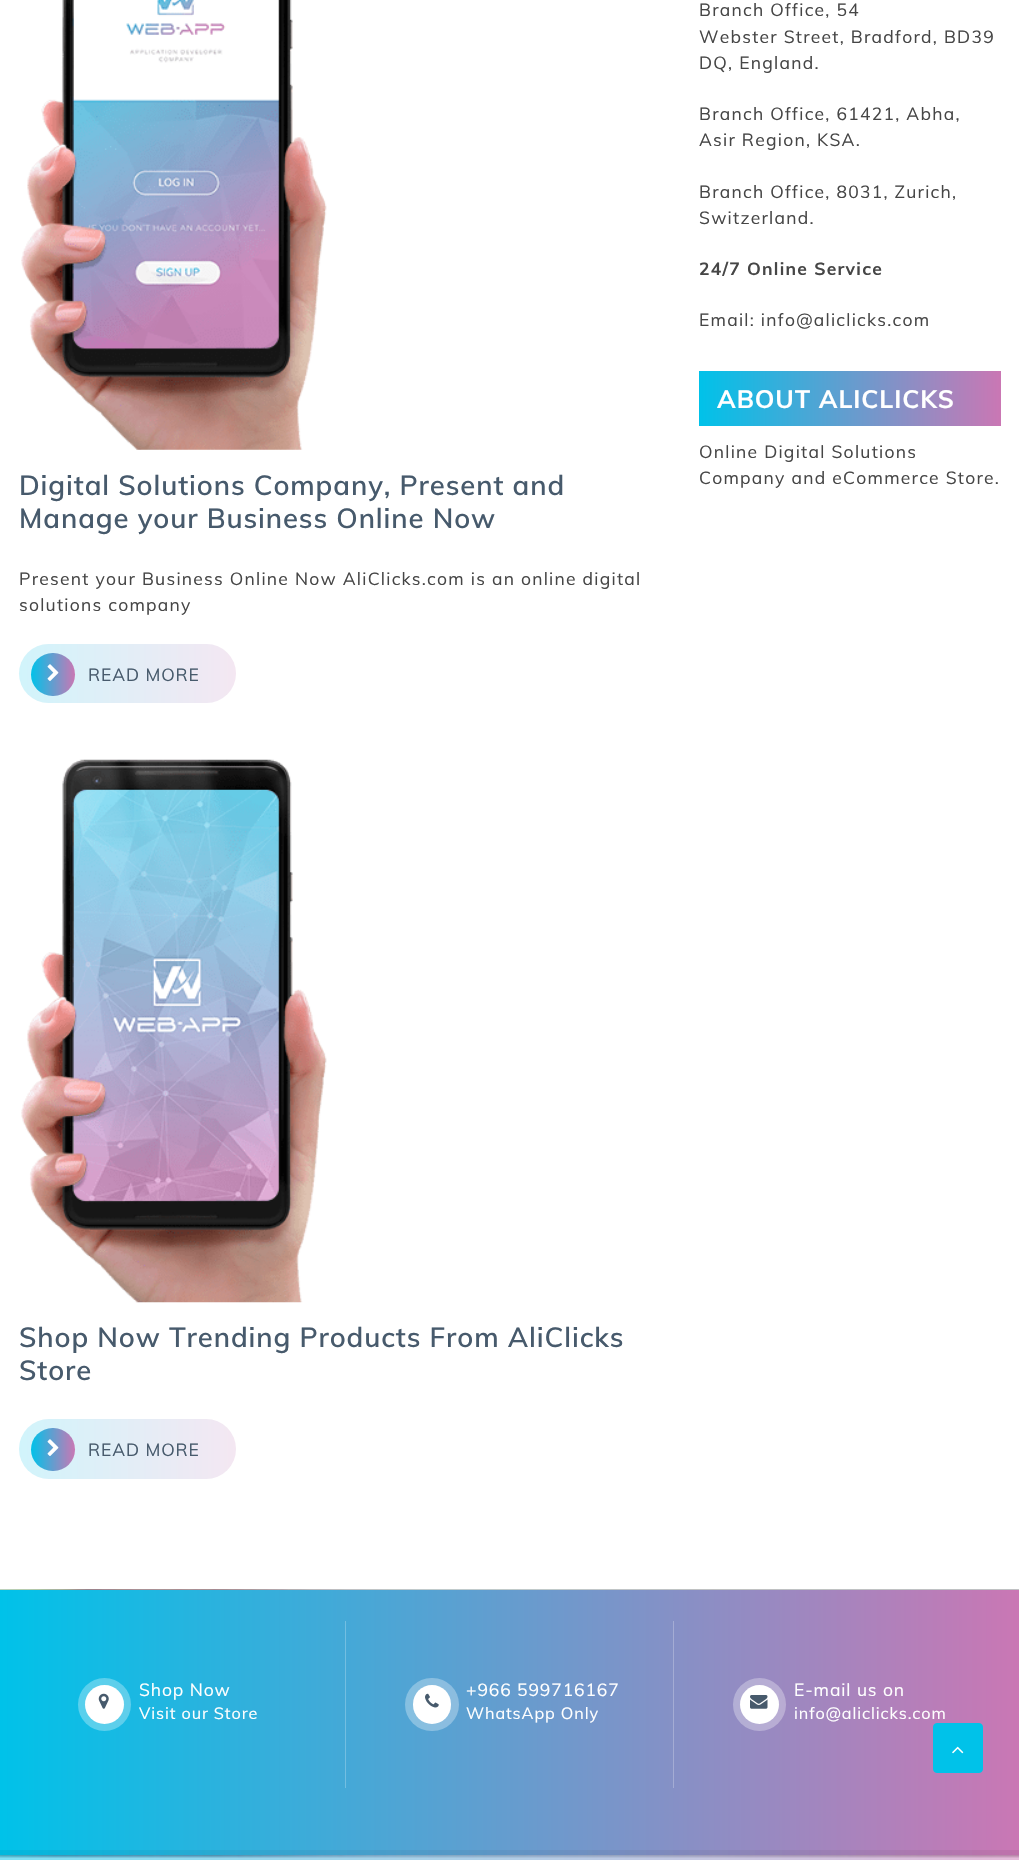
void draw(SkCanvas* c) {
SkPaint p;
p.setAntiAlias(true);
auto F=[&](const char* family, int weight, float size, bool italic = false){SkFontStyle style(weight, SkFontStyle::kNormal_Width,italic ? SkFontStyle::kItalic_Slant : SkFontStyle::kUpright_Slant);SkFont result(fontMgr->matchFamilyStyle(family, style), size);result.setSubpixel(true);return result;};
auto L=[&](const char* s, float x, float y, const SkFont& font, const SkPaint& ink, float letter, float word){std::vector<SkGlyphID> glyphs(font.countText(s, strlen(s), SkTextEncoding::kUTF8));std::vector<float> xs(glyphs.size());font.textToGlyphs(s, strlen(s), SkTextEncoding::kUTF8, glyphs);font.getXPos(glyphs, xs, x);float extra = 0;for (size_t i = 0; i < glyphs.size(); i++) {xs[i] += extra;extra += letter + word * (glyphs[i] == font.unicharToGlyph(' '));}c->drawTextBlob(SkTextBlob::MakeFromPosHGlyphs(glyphs, xs, y, font), 0, 0, ink);};
auto R=[&](float x, float y, float w, float h){c->drawRect(SkRect::MakeXYWH(x, y, w, h), p);};
auto Q=[&](float x, float y, float w, float h, float radius){c->drawRoundRect(SkRect::MakeXYWH(x, y, w, h), radius, radius, p);};
auto I=[&](const char* path, float x, float y, float w, float h){auto image = SkImages::DeferredFromEncodedData(SkData::MakeFromFileName(path));c->drawImageRect(image, SkRect::MakeXYWH(x, y, w, h), SkSamplingOptions());};
c->clear(0xffffffff);
auto f1 = F("Muli",400,17.5);
p.setColor(0xff464646);
L("Branch Office, 54",699,16,f1,p,1.25,0);
L("Webster Street, Bradford, BD39",699,43,f1,p,1.25,0);
L("DQ, England.",699,69,f1,p,1.25,0);
L("Branch Office, 61421, Abha,",699,120,f1,p,1.25,0);
L("Asir Region, KSA.",699,146,f1,p,1.25,0);
L("Branch Office, 8031, Zurich,",699,198,f1,p,1.25,0);
L("Switzerland.",699,224,f1,p,1.25,0);
auto f2 = F("Muli",700,17.5);
L("24/7 Online Service",699,275,f2,p,1.25,0);
L("Email: info@aliclicks.com",699,326,f1,p,1.25,0);
{
const SkColor colors[] = {0xff00c2e9,0xffca77b4};
const float stops[] = {0,1};
const SkPoint ends[] = {{699,399}, {1001,399}};
p.setShader(SkGradientShader::MakeLinear(ends, colors, stops, 2, SkTileMode::kClamp));
p.setAlpha(255);
}
R(699,371,302,55);
auto f3 = F("Muli",700,25);
p.setShader(nullptr);
p.setColor(0xffffffff);
L("ABOUT ALICLICKS",717,408,f3,p,.9,0);
p.setColor(0xff464646);
L("Online Digital Solutions",699,458,f1,p,1.25,0);
L("Company and eCommerce Store.",699,484,f1,p,1.25,0);
I("1.png",21,0,306,450);
auto f4 = F("Muli",600,27.5);
p.setColor(0xff475a6c);
L("Digital Solutions Company, Present and",19,495,f4,p,.9,0);
L("Manage your Business Online Now",19,528,f4,p,.9,0);
p.setColor(0xff464646);
L("Present your Business Online Now AliClicks.com is an online digital",19,585,f1,p,1.25,0);
L("solutions company",19,611,f1,p,1.25,0);
{
const SkColor colors[] = {0xffd1f4fb,0xfff4e7f2};
const float stops[] = {0,1};
const SkPoint ends[] = {{19,673}, {236,673}};
p.setShader(SkGradientShader::MakeLinear(ends, colors, stops, 2, SkTileMode::kClamp));
p.setAlpha(255);
}
Q(19,644,217,59,29.5);
{
const SkColor colors[] = {0xff00c2e9,0xffca77b4};
const float stops[] = {0,1};
const SkPoint ends[] = {{31,674}, {75,674}};
p.setShader(SkGradientShader::MakeLinear(ends, colors, stops, 2, SkTileMode::kClamp));
p.setAlpha(255);
}
Q(31,653,44,43,21.5);
I("2.png",47,664,12,17);
p.setShader(nullptr);
p.setColor(0xff475a6c);
L("READ MORE",88,681,f1,p,.9,0);
I("3.png",21,759,306,544);
L("Shop Now Trending Products From AliClicks",19,1347,f4,p,.9,0);
L("Store",19,1380,f4,p,.9,0);
{
const SkColor colors[] = {0xffd1f4fb,0xfff4e7f2};
const float stops[] = {0,1};
const SkPoint ends[] = {{19,1449}, {236,1449}};
p.setShader(SkGradientShader::MakeLinear(ends, colors, stops, 2, SkTileMode::kClamp));
p.setAlpha(255);
}
Q(19,1419,217,60,30);
{
const SkColor colors[] = {0xff00c2e9,0xffca77b4};
const float stops[] = {0,1};
const SkPoint ends[] = {{31,1449}, {75,1449}};
p.setShader(SkGradientShader::MakeLinear(ends, colors, stops, 2, SkTileMode::kClamp));
p.setAlpha(255);
}
Q(31,1428,44,43,21.5);
I("2.png",47,1439,12,17);
p.setShader(nullptr);
p.setColor(0xff475a6c);
L("READ MORE",88,1456,f1,p,.9,0);
I("4.png",0,1589,1019,269);
{
const SkColor colors[] = {0xff00c2e9,0xffca77b4};
const float stops[] = {0,1};
const SkPoint ends[] = {{0,1720}, {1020,1720}};
p.setShader(SkGradientShader::MakeLinear(ends, colors, stops, 2, SkTileMode::kClamp));
p.setAlpha(255);
}
R(0,1590,1019,265);
p.setShader(nullptr);
p.setColor(0x1a000000);
R(0,1850,1019,5);
p.setColor(0xff73bee1);
R(345,1621,1,167);
p.setColor(0xffffffff);
c->drawCircle(104.5,1704.5,19.5,p);
p.setColor(0x4dffffff);
c->drawCircle(104.5,1704.5,26.5,p);
I("5.png",98,1693,11,16);
p.setColor(0xffffffff);
L("Shop Now",139,1696,f1,p,.9,0);
auto f5 = F("Muli",400,16.25);
L("Visit our Store",139,1719,f5,p,.9,0);
p.setColor(0xffa4acd4);
R(673,1621,1,167);
p.setColor(0xffffffff);
Q(413,1685,38,39,19);
p.setColor(0x4dffffff);
Q(405,1678,54,53,26.5);
I("6.png",425,1693,14,15);
p.setColor(0xffffffff);
L("+966 599716167",466,1696,f1,p,.9,0);
L("WhatsApp Only",466,1719,f5,p,.9,0);
c->drawCircle(759.5,1704.5,19.5,p);
p.setColor(0x4dffffff);
c->drawCircle(759.5,1704.5,26.5,p);
I("7.png",750,1695,18,14);
p.setColor(0xffffffff);
L("E-mail us on",794,1696,f1,p,.9,0);
L("info@aliclicks.com",794,1719,f5,p,.9,0);
{
const SkColor colors[] = {0x8000c2e9,0x80ca77b4};
const float stops[] = {0,1};
const SkPoint ends[] = {{0,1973}, {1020,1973}};
p.setShader(SkGradientShader::MakeLinear(ends, colors, stops, 2, SkTileMode::kClamp));
p.setAlpha(255);
}
R(0,1850,1019,10);
p.setShader(nullptr);
p.setColor(0xff00c2e9);
c->drawRoundRect(SkRect::MakeXYWH(933.5,1723.5,49,49),3.5,3.5,p);
p.setStroke(true);
p.setStrokeWidth(1);
c->drawRoundRect(SkRect::MakeXYWH(933.5,1723.5,49,49),3.5,3.5,p);
I("8.png",952,1746,12,8);
}
